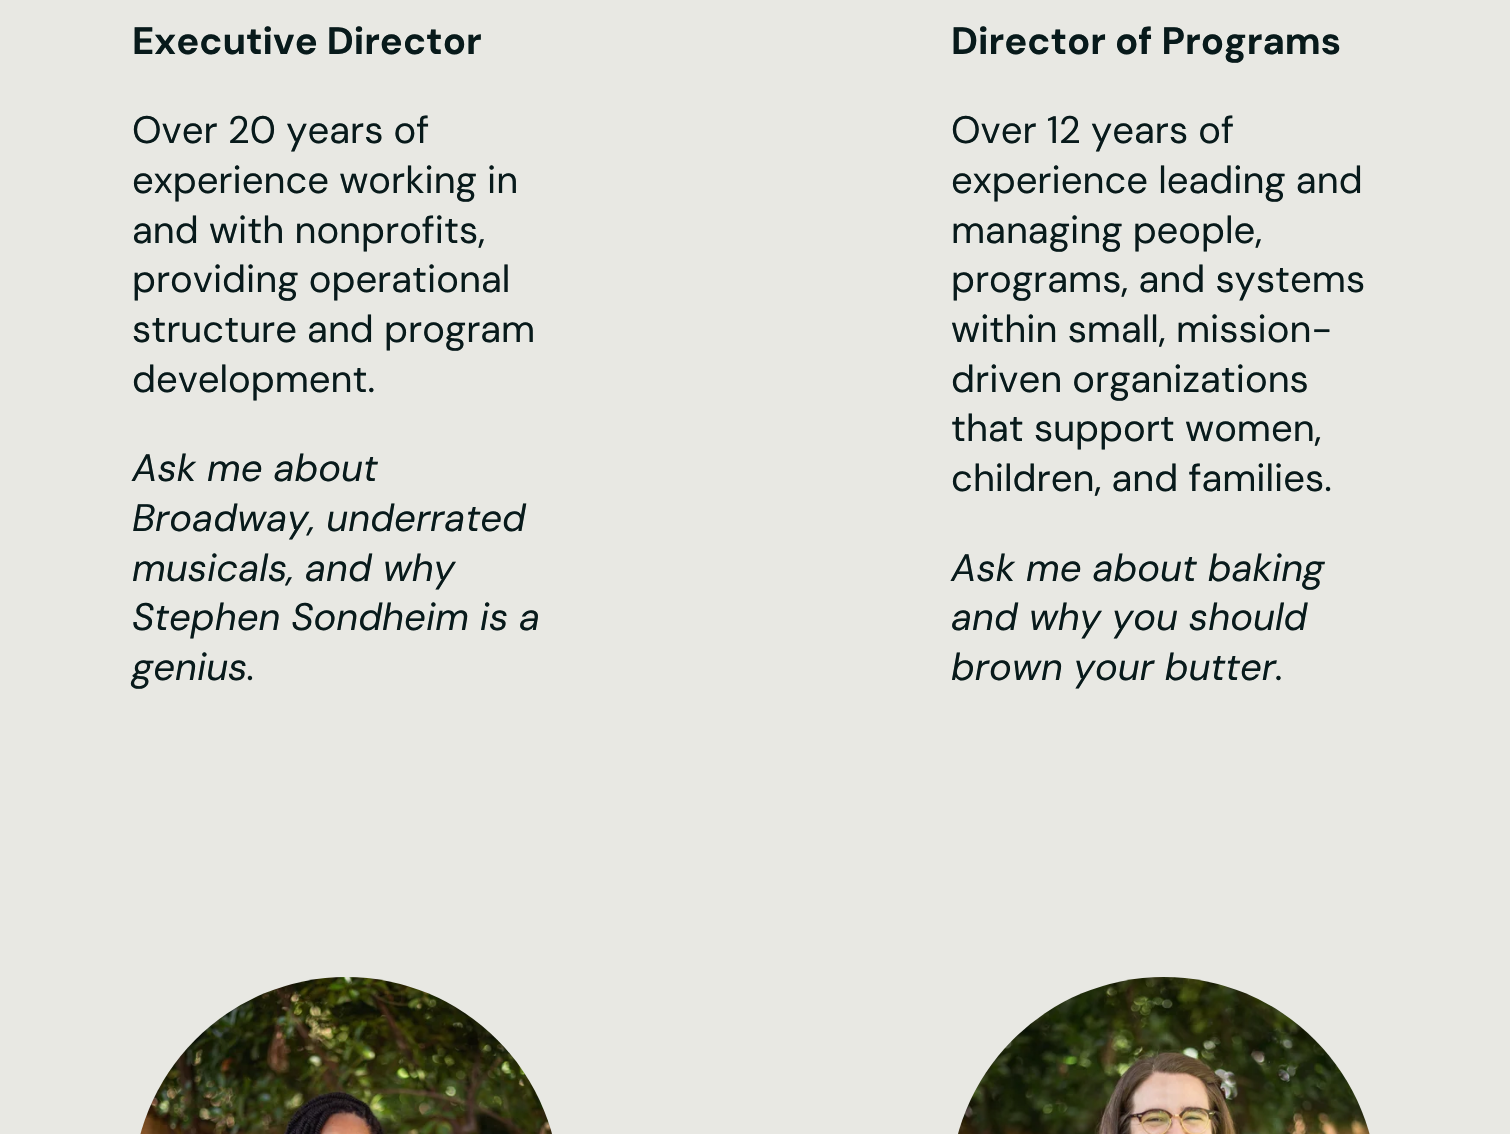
void draw(SkCanvas* c) {
SkPaint p;
p.setAntiAlias(true);
auto F=[&](const char* family, int weight, float size, bool italic = false){SkFontStyle style(weight, SkFontStyle::kNormal_Width,italic ? SkFontStyle::kItalic_Slant : SkFontStyle::kUpright_Slant);SkFont result(fontMgr->matchFamilyStyle(family, style), size);result.setSubpixel(true);return result;};
auto T=[&](const char* s, float x, float y, const SkFont& font){c->drawString(s, x, y, font, p);};
auto I=[&](const char* path, float x, float y, float w, float h){auto image = SkImages::DeferredFromEncodedData(SkData::MakeFromFileName(path));c->drawImageRect(image, SkRect::MakeXYWH(x, y, w, h), SkSamplingOptions());};
c->clear(0xffe8e8e3);
auto f1 = F("DM Sans",700,38.25);
p.setColor(0xff081a1b);
T("Executive Director",132,54,f1);
auto f2 = F("DM Sans",400,38.25);
T("Over 20 years of",132,143,f2);
T("experience working in",132,193,f2);
T("and with nonprofits,",132,243,f2);
T("providing operational",132,292,f2);
T("structure and program",132,342,f2);
T("development.",132,392,f2);
auto f3 = F("DM Sans",400,38.25,true);
T("Ask me about",132,481,f3);
T("Broadway, underrated",132,531,f3);
T("musicals, and why",132,581,f3);
T("Stephen Sondheim is a",132,630,f3);
T("genius.",132,680,f3);
T("Director of Programs",951,54,f1);
T("Over 12 years of",951,143,f2);
T("experience leading and",951,193,f2);
T("managing people,",951,243,f2);
T("programs, and systems",951,292,f2);
T("within small, mission-",951,342,f2);
T("driven organizations",951,392,f2);
T("that support women,",951,441,f2);
T("children, and families.",951,491,f2);
T("Ask me about baking",951,581,f3);
T("and why you should",951,630,f3);
T("brown your butter.",951,680,f3);
I("1.png",140,977,412,157);
I("2.png",958,977,412,157);
}
